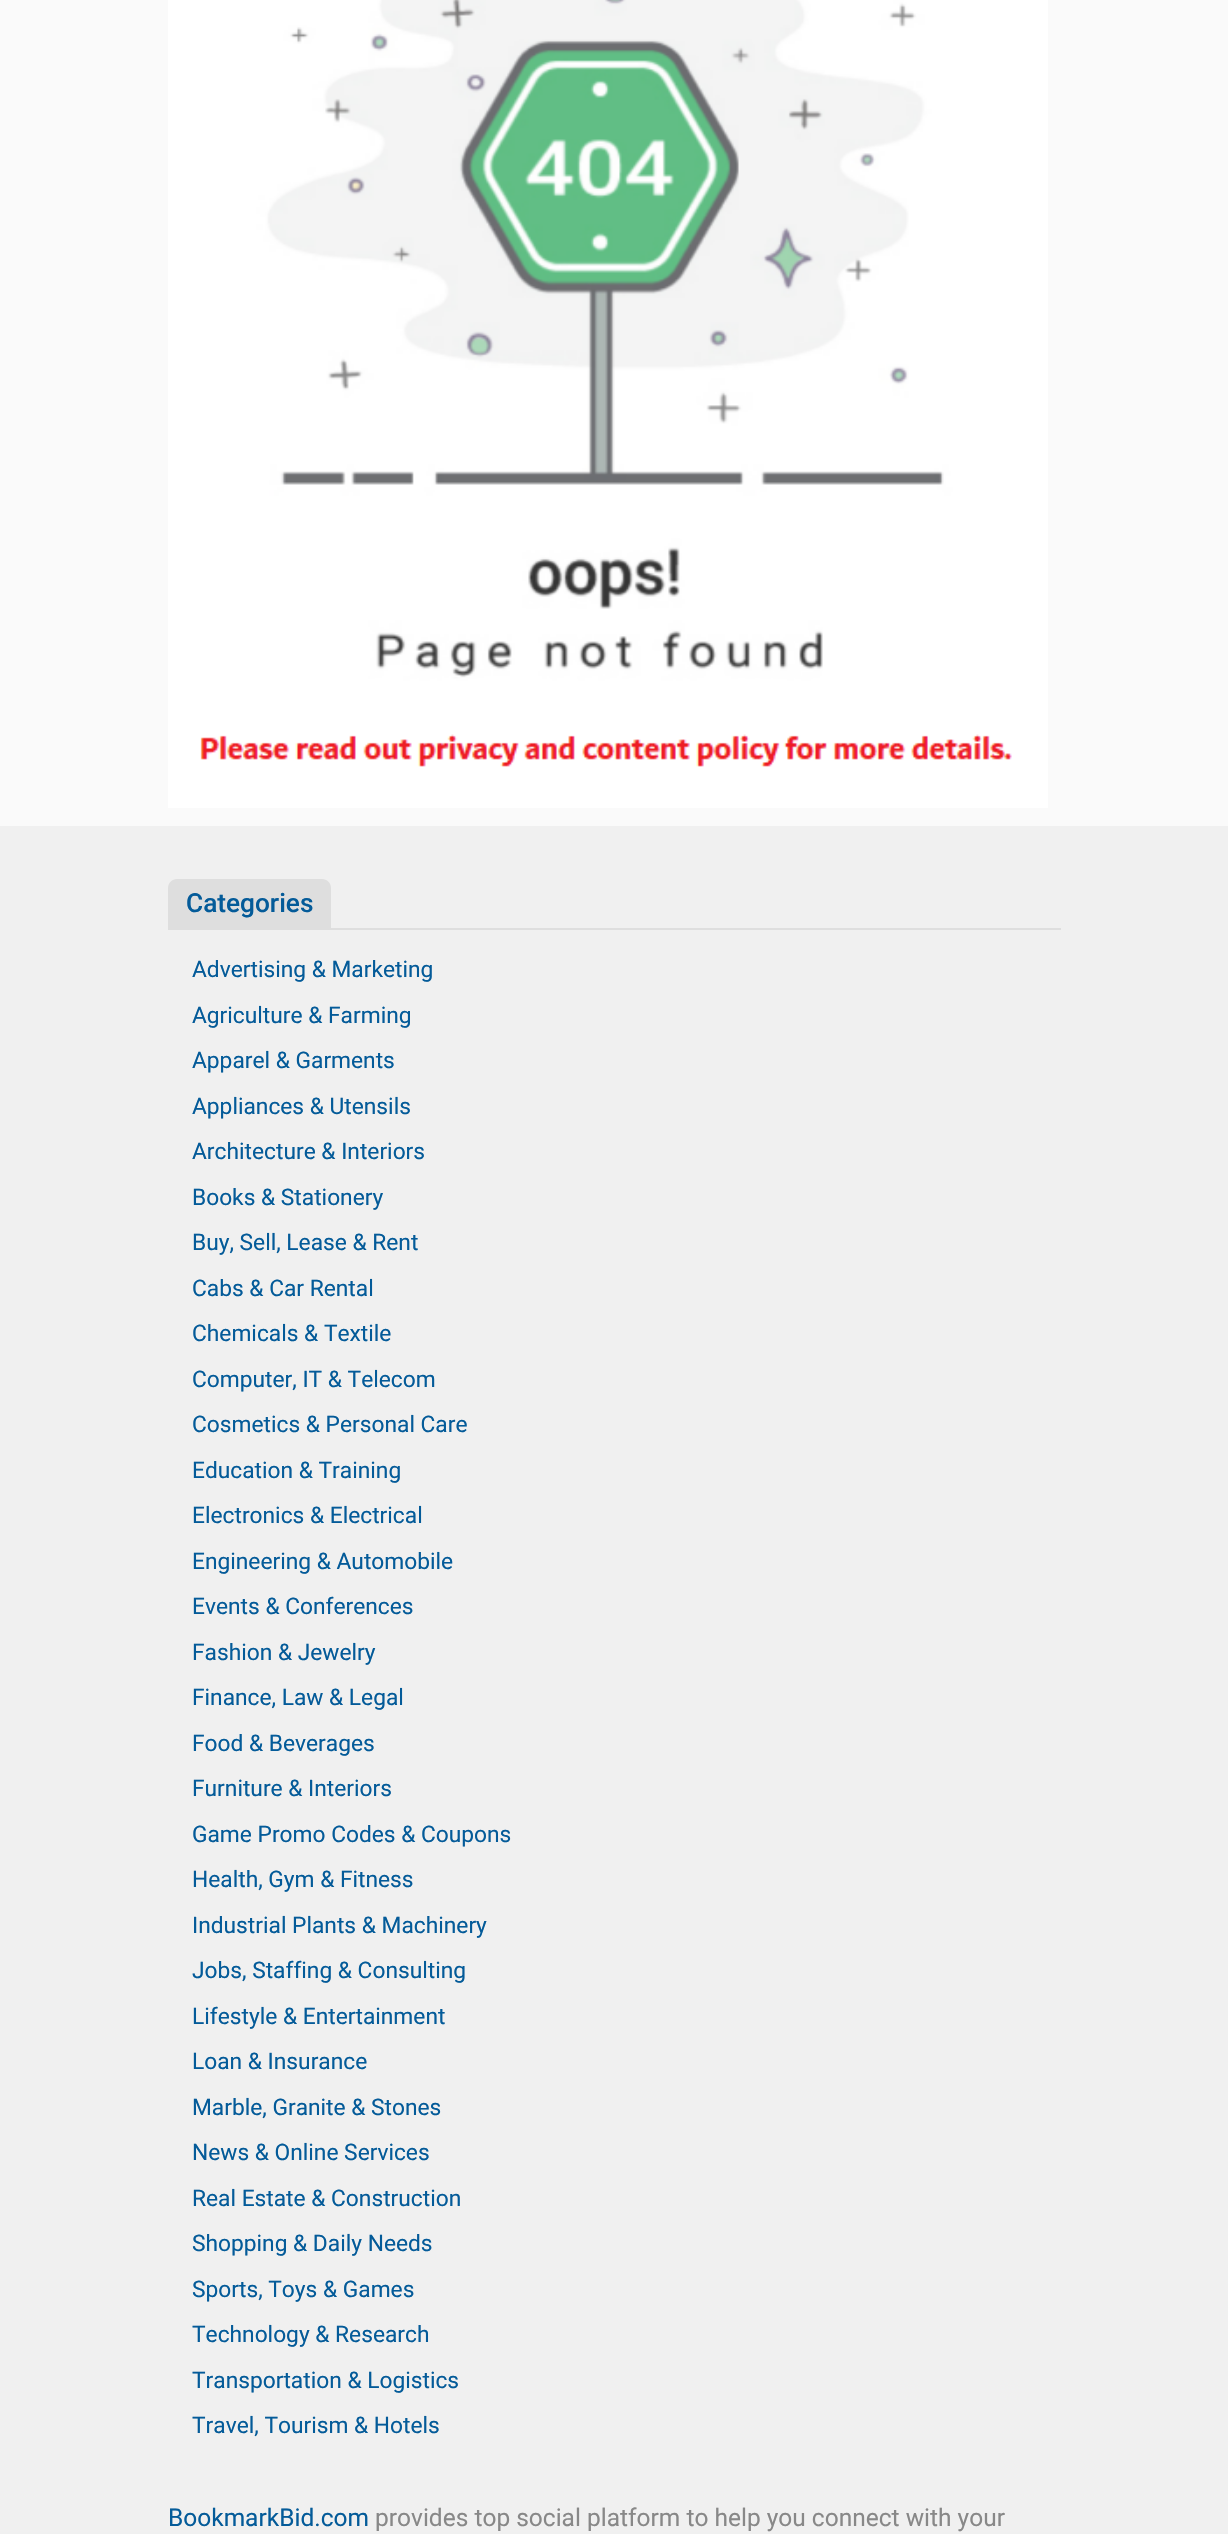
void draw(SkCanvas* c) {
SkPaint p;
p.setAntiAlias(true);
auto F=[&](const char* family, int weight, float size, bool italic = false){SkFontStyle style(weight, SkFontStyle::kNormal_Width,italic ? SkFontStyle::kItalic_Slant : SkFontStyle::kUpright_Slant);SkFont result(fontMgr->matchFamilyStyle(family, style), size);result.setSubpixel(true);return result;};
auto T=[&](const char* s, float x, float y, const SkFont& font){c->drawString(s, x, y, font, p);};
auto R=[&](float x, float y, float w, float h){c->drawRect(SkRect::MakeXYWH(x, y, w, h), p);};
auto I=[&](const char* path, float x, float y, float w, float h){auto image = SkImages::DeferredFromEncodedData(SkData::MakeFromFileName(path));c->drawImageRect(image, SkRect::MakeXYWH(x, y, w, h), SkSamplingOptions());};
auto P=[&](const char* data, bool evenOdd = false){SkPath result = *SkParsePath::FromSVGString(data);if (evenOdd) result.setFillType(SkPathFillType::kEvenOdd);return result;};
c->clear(0xfffafafa);
I("1.png",168,0,880,808);
p.setColor(0xfff0f0f0);
R(0,826,1228,1708);
p.setColor(0xffdedede);
R(168,928,893,2);
c->drawPath(P("M177 879h145c5 0 9 4 9 9v40h-163v-40c0-5 4-9 9-9z"),p);
auto f1 = F("Roboto",500,26.25);
p.setColor(0xff045b99);
T("Categories",186,912,f1);
auto f2 = F("Roboto",400,22.75);
T("Advertising & Marketing",192,977,f2);
T("Agriculture & Farming",192,1023,f2);
T("Apparel & Garments",192,1068,f2);
T("Appliances & Utensils",192,1114,f2);
T("Architecture & Interiors",192,1159,f2);
T("Books & Stationery",192,1205,f2);
T("Buy, Sell, Lease & Rent",192,1250,f2);
T("Cabs & Car Rental",192,1296,f2);
T("Chemicals & Textile",192,1341,f2);
T("Computer, IT & Telecom",192,1387,f2);
T("Cosmetics & Personal Care",192,1432,f2);
T("Education & Training",192,1478,f2);
T("Electronics & Electrical",192,1523,f2);
T("Engineering & Automobile",192,1569,f2);
T("Events & Conferences",192,1614,f2);
T("Fashion & Jewelry",192,1660,f2);
T("Finance, Law & Legal",192,1705,f2);
T("Food & Beverages",192,1751,f2);
T("Furniture & Interiors",192,1796,f2);
T("Game Promo Codes & Coupons",192,1842,f2);
T("Health, Gym & Fitness",192,1887,f2);
T("Industrial Plants & Machinery",192,1933,f2);
T("Jobs, Staffing & Consulting",192,1978,f2);
T("Lifestyle & Entertainment",192,2024,f2);
T("Loan & Insurance",192,2069,f2);
T("Marble, Granite & Stones",192,2115,f2);
T("News & Online Services",192,2160,f2);
T("Real Estate & Construction",192,2206,f2);
T("Shopping & Daily Needs",192,2251,f2);
T("Sports, Toys & Games",192,2297,f2);
T("Technology & Research",192,2342,f2);
T("Transportation & Logistics",192,2388,f2);
T("Travel, Tourism & Hotels",192,2433,f2);
auto f3 = F("Roboto",400,24.5);
T("BookmarkBid.com",168,2526,f3);
p.setColor(0xff888888);
T("provides top social platform to help you connect with your",375,2526,f3);
}
